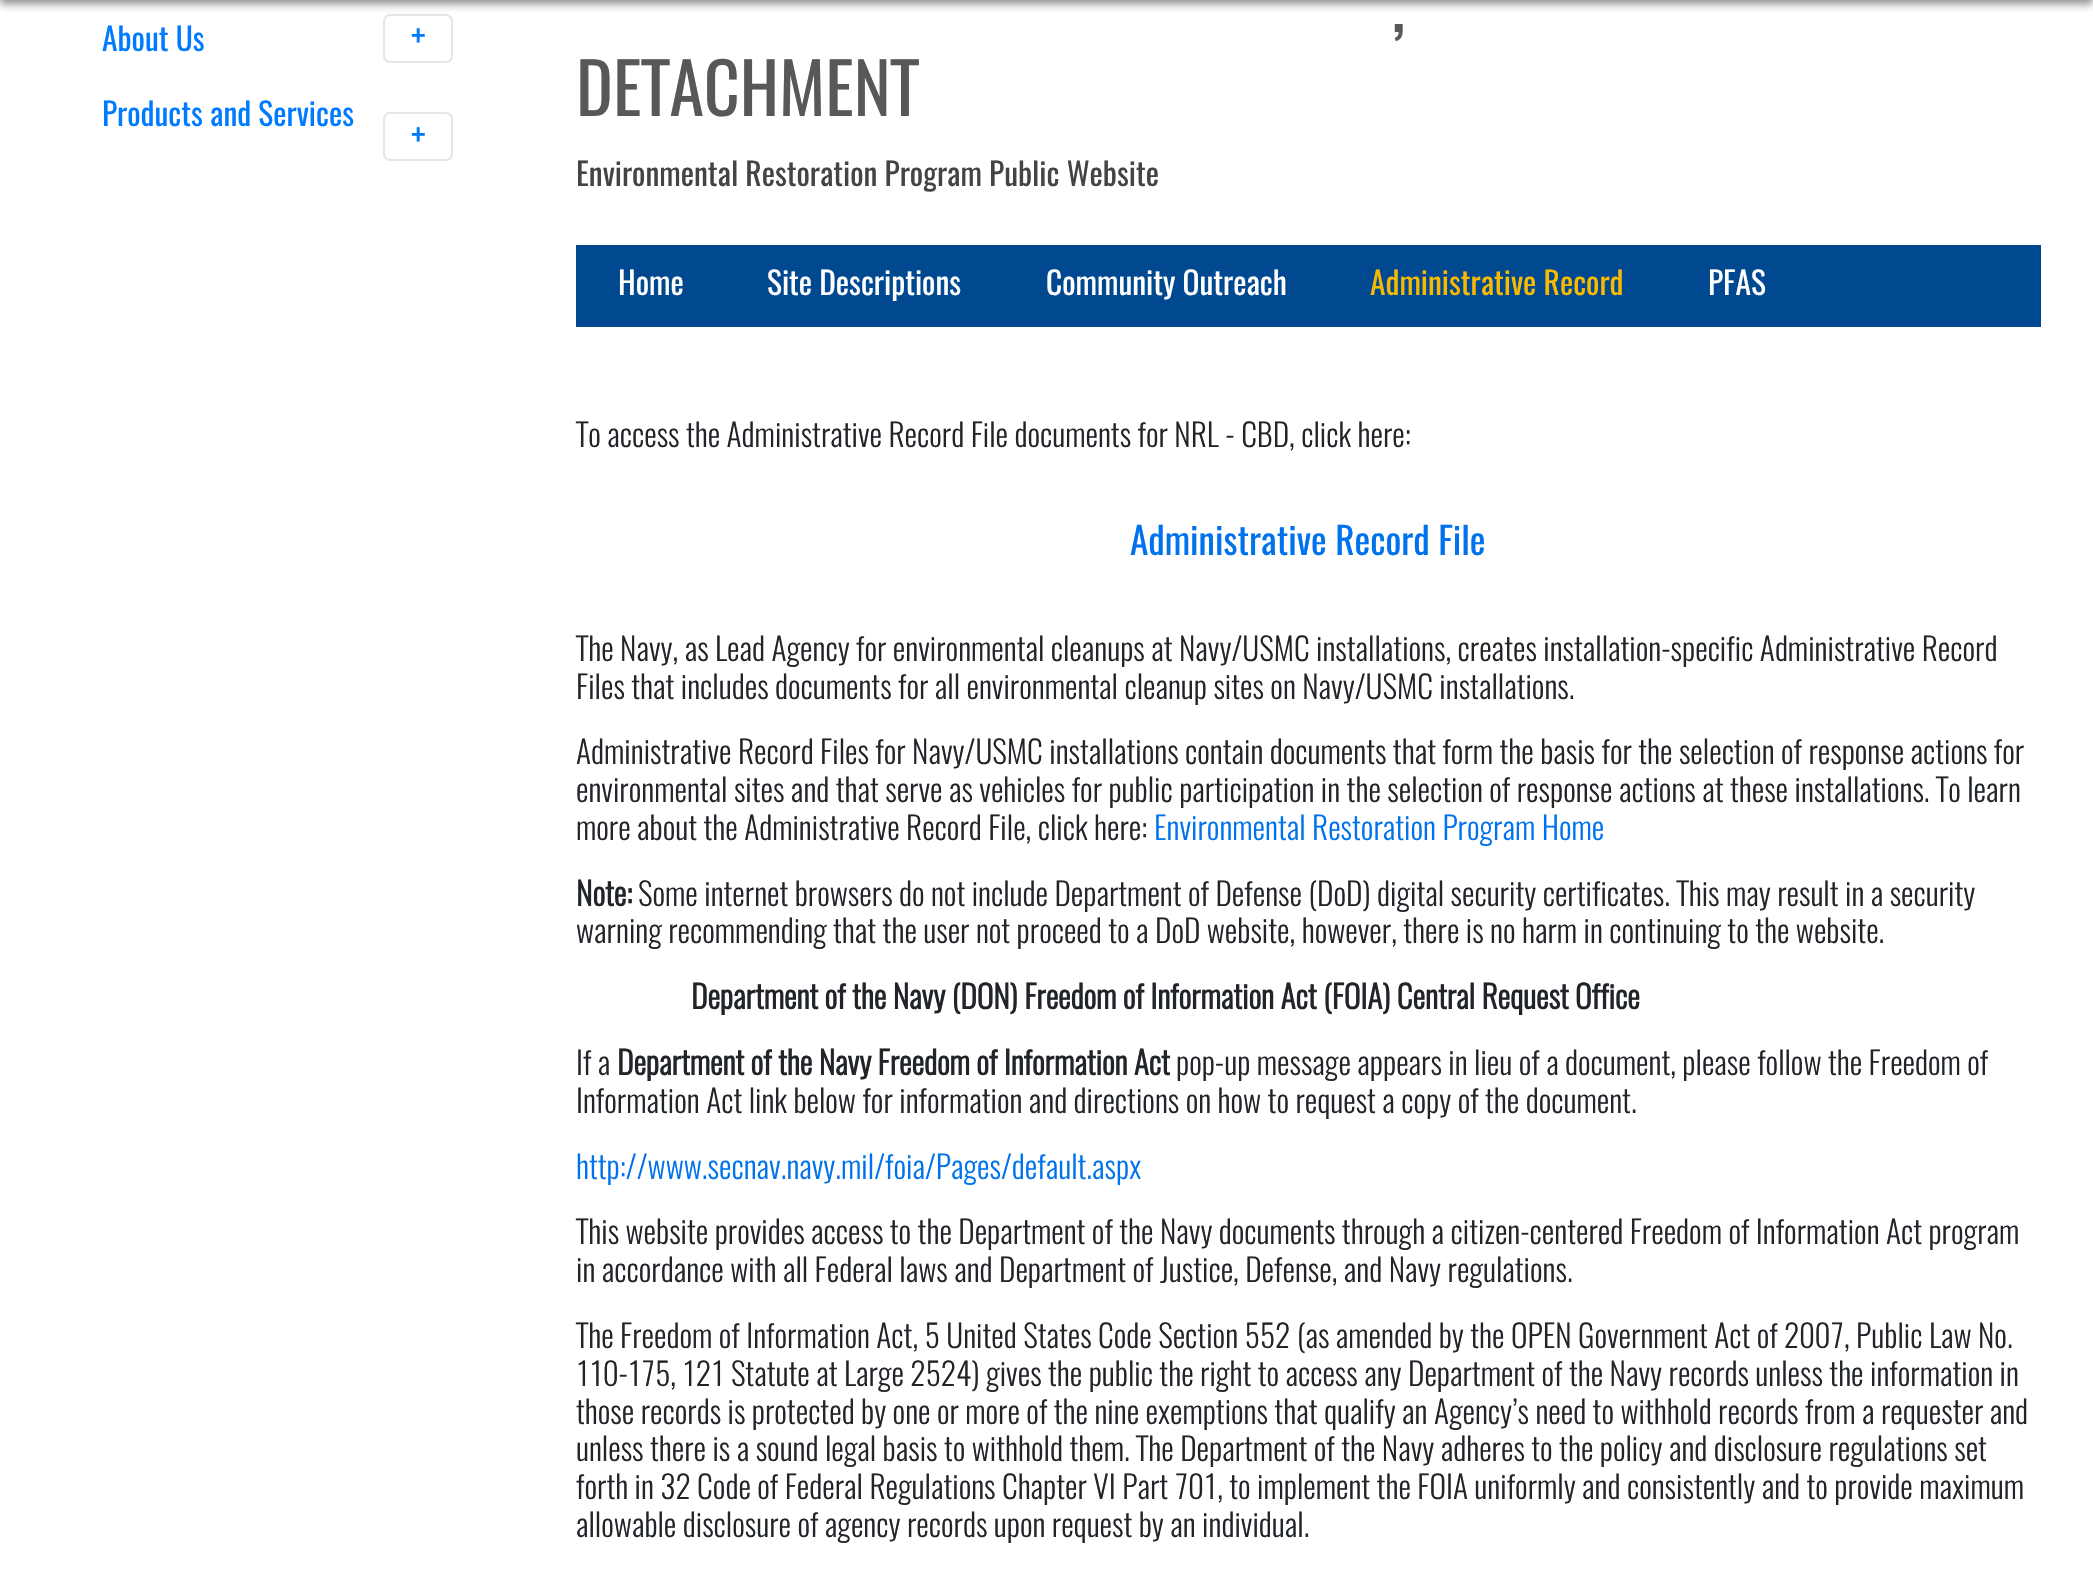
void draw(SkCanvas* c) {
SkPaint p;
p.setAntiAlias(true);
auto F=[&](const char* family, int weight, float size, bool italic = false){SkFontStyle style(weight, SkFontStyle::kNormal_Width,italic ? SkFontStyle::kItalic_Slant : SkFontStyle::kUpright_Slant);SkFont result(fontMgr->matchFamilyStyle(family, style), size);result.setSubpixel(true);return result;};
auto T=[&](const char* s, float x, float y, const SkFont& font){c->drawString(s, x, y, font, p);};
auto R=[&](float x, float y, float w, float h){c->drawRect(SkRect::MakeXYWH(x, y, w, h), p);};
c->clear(0xffffffff);
p.setStroke(true);
p.setStrokeWidth(2);
p.setColor(0xffe6e6e6);
c->drawRoundRect(SkRect::MakeXYWH(384,15,68,47),6,6,p);
p.setStroke(false);
p.setColor(0x73000000);
p.setMaskFilter(SkMaskFilter::MakeBlur(kNormal_SkBlurStyle, 4.5));
c->drawRect(SkRect::MakeXYWH(0,-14,2093,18),p);
p.setMaskFilter(nullptr);
auto f1 = F("Oswald",400,31.5);
p.setColor(0xff007bff);
T("About Us",102,51,f1);
auto f2 = F("Oswald",400,35);
T("+",411,50,f2);
T("Products and Services",102,126,f1);
p.setStroke(true);
p.setColor(0xffe6e6e6);
c->drawRoundRect(SkRect::MakeXYWH(384,113,68,47),6,6,p);
p.setStroke(false);
p.setColor(0xff007bff);
T("+",411,149,f2);
auto f3 = F("Oswald",400,70);
p.setColor(0xff585858);
T(",",1392,32,f3);
T("DETACHMENT",576,116,f3);
p.setColor(0xff444444);
T("Environmental Restoration Program Public Website",576,186,f1);
p.setColor(0xff004990);
R(576,245,1465,82);
p.setColor(0xffffffff);
T("Home",618,295,f1);
T("Site Descriptions",767,295,f1);
T("Community Outreach",1046,295,f1);
p.setColor(0xfff8ba01);
T("Administrative Record",1370,295,f1);
p.setColor(0xffffffff);
T("PFAS",1708,295,f1);
auto f4 = F("Oswald",300,31.5);
p.setColor(0xff212529);
T("To access the Administrative Record File documents for NRL - CBD, click here:",576,447,f4);
auto f5 = F("Oswald",400,37.25);
p.setColor(0xff0072ed);
T("Administrative Record File",1130,555,f5);
p.setColor(0xff212529);
T("The Navy, as Lead Agency for environmental cleanups at Navy/USMC installations, creates installation-specific Administrative Record",576,661,f4);
T("Files that includes documents for all environmental cleanup sites on Navy/USMC installations.",576,699,f4);
T("Administrative Record Files for Navy/USMC installations contain documents that form the basis for the selection of response actions for",576,764,f4);
T("environmental sites and that serve as vehicles for public participation in the selection of response actions at these installations. To learn",576,802,f4);
T("more about the Administrative Record File, click here:",576,840,f4);
p.setColor(0xff0072ed);
T("Environmental Restoration Program Home",1154,840,f4);
auto f6 = F("Oswald",700,31.5);
p.setColor(0xff212529);
T("Note:",576,906,f6);
T("Some internet browsers do not include Department of Defense (DoD) digital security certificates. This may result in a security",638,906,f4);
T("warning recommending that the user not proceed to a DoD website, however, there is no harm in continuing to the website.",576,943,f4);
T("Department of the Navy (DON) Freedom of Information Act (FOIA) Central Request Office",691,1009,f6);
T("If a",576,1075,f4);
T("Department of the Navy Freedom of Information Act",617,1075,f6);
T("pop-up message appears in lieu of a document, please follow the Freedom of",1176,1075,f4);
T("Information Act link below for information and directions on how to request a copy of the document.",576,1113,f4);
p.setColor(0xff0072ed);
T("http://www.secnav.navy.mil/foia/Pages/default.aspx",576,1179,f4);
p.setColor(0xff212529);
T("This website provides access to the Department of the Navy documents through a citizen-centered Freedom of Information Act program",576,1244,f4);
T("in accordance with all Federal laws and Department of Justice, Defense, and Navy regulations.",576,1282,f4);
T("The Freedom of Information Act, 5 United States Code Section 552 (as amended by the OPEN Government Act of 2007, Public Law No.",576,1348,f4);
T("110-175, 121 Statute at Large 2524) gives the public the right to access any Department of the Navy records unless the information in",576,1386,f4);
T("those records is protected by one or more of the nine exemptions that qualify an Agency’s need to withhold records from a requester and",576,1424,f4);
T("unless there is a sound legal basis to withhold them. The Department of the Navy adheres to the policy and disclosure regulations set",576,1461,f4);
T("forth in 32 Code of Federal Regulations Chapter VI Part 701, to implement the FOIA uniformly and consistently and to provide maximum",576,1499,f4);
T("allowable disclosure of agency records upon request by an individual.",576,1537,f4);
}
